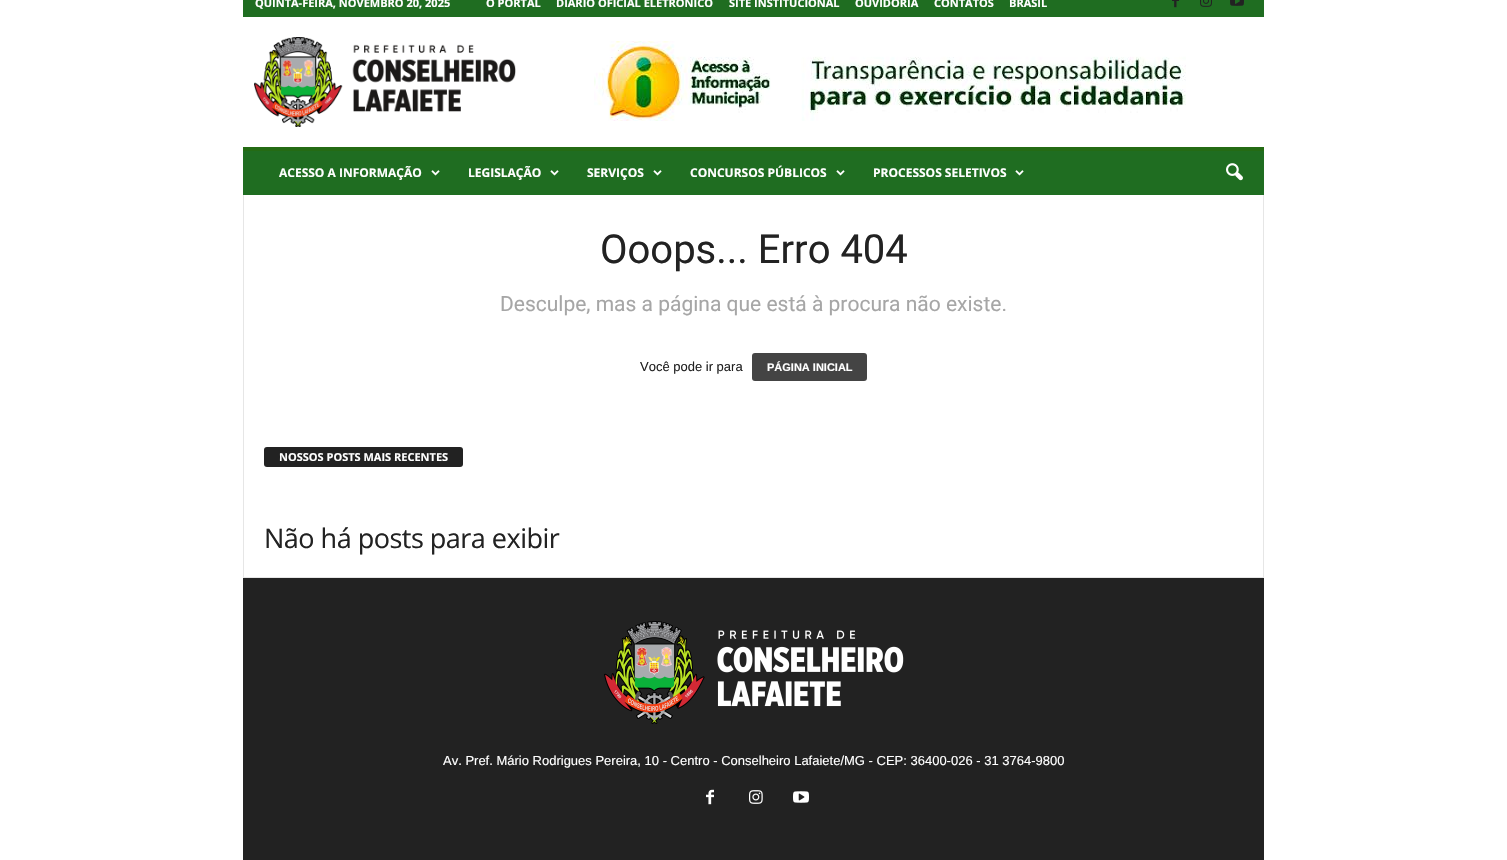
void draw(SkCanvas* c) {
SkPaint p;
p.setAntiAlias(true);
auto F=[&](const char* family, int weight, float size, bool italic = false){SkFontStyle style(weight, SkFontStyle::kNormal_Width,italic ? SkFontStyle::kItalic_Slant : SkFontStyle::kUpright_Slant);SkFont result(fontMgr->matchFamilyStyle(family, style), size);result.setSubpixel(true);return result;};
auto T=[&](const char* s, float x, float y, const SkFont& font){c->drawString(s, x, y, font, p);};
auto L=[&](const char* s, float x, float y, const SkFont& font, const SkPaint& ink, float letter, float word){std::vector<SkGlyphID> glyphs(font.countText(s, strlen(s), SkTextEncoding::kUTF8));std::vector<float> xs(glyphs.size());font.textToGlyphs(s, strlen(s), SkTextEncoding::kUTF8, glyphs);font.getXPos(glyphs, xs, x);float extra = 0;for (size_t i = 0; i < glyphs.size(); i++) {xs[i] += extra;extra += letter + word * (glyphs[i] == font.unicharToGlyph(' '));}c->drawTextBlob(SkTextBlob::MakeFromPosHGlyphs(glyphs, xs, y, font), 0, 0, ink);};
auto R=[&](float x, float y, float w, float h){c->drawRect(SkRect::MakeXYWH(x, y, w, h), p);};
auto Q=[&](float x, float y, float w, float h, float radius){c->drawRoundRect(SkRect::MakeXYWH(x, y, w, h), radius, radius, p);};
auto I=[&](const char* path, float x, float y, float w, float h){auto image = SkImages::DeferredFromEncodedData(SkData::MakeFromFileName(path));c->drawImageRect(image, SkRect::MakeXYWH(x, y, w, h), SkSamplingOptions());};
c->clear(0xffffffff);
p.setColor(0xff1f6d21);
R(243,0,1021,17);
auto f1 = F("Open Sans",700,11);
p.setColor(0xffffffff);
T("QUINTA-FEIRA, NOVEMBRO 20, 2025",255,7,f1);
T("O PORTAL",486,7,f1);
T("DIÁRIO OFICIAL ELETRÔNICO",556,7,f1);
T("SITE INSTITUCIONAL",729,7,f1);
T("OUVIDORIA",855,7,f1);
T("CONTATOS",934,7,f1);
T("BRASIL",1009,7,f1);
I("1.png",1172,0,7,8);
I("2.png",1200,0,12,7);
I("3.png",1230,0,14,6);
I("4.png",254,37,262,90);
I("5.png",594,41,592,80);
p.setColor(0xff1f6d21);
R(243,151,1021,44);
p.setColor(0xff246b14);
R(243,147,1021,4);
auto f2 = F("Open Sans",700,12);
p.setColor(0xffffffff);
T("ACESSO A INFORMAÇÃO",279,177,f2);
I("6.png",431,170,9,6);
T("LEGISLAÇÃO",468,177,f2);
I("6.png",550,170,9,6);
T("SERVIÇOS",587,177,f2);
I("6.png",653,170,9,6);
T("CONCURSOS PÚBLICOS",690,177,f2);
I("6.png",836,170,9,6);
T("PROCESSOS SELETIVOS",873,177,f2);
I("6.png",1015,170,9,6);
I("7.png",1226,163,17,18);
p.setColor(0xffe6e6e6);
R(243,577,1021,1);
R(243,195,1,382);
auto f3 = F("Roboto",400,40);
p.setColor(0xff222222);
T("Ooops... Erro 404",600,263,f3);
auto f4 = F("Roboto",400,21);
p.setColor(0xffa6a6a6);
T("Desculpe, mas a página que está à procura não existe.",500,311,f4);
auto f5 = F("Liberation Sans",400,13);
p.setColor(0xff222222);
T("Você pode ir para",640,371,f5);
p.setColor(0xff444444);
Q(752,353,115,28,3);
auto f6 = F("Liberation Sans",700,11);
p.setColor(0xffffffff);
T("PÁGINA INICIAL",767,371,f6);
p.setColor(0xff222222);
Q(264,447,199,20,3);
p.setColor(0xffffffff);
T("NOSSOS POSTS MAIS RECENTES",279,461,f1);
auto f7 = F("Open Sans",400,27);
p.setColor(0xff222222);
L("Não há posts para exibir",264,548,f7,p,-.5,0);
p.setColor(0xffe6e6e6);
R(1263,195,1,382);
p.setColor(0xff222222);
R(243,578,1021,282);
I("8.png",604,621,300,103);
p.setColor(0xffffffff);
T("Av. Pref. Mário Rodrigues Pereira, 10 - Centro - Conselheiro Lafaiete/MG - CEP: 36400-026 - 31 3764-9800",443,765,f5);
I("9.png",706,789,8,16);
I("10.png",749,790,14,14);
I("11.png",793,791,16,12);
}
